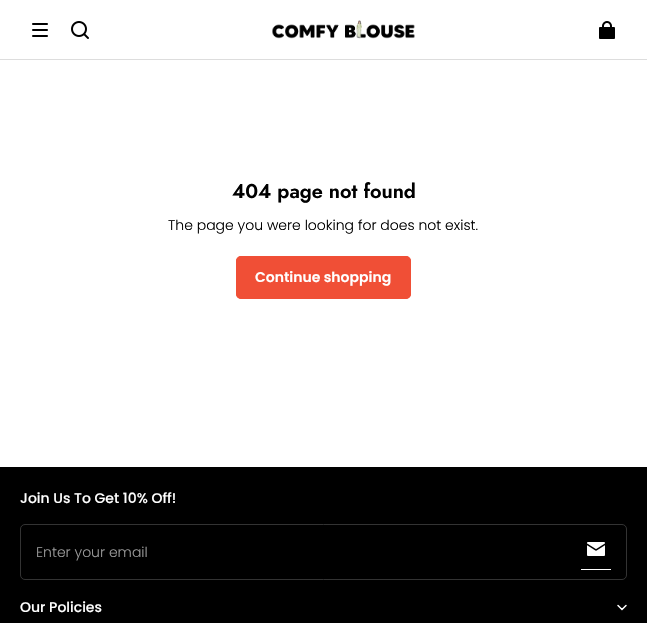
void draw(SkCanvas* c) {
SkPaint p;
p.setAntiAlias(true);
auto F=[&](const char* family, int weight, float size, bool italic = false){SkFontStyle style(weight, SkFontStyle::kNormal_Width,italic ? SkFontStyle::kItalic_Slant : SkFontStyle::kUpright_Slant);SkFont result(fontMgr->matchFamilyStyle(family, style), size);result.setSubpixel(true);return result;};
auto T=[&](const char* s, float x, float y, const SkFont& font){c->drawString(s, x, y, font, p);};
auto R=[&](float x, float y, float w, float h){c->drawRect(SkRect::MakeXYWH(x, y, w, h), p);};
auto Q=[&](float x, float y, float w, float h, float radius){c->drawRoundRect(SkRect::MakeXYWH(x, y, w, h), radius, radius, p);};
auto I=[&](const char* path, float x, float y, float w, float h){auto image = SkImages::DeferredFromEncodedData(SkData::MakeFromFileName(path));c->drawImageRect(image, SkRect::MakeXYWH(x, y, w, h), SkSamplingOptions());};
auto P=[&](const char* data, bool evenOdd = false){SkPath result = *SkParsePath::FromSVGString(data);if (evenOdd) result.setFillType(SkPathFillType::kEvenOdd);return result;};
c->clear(0xffffffff);
p.setColor(0xffdddddd);
R(0,59,647,1);
I("1.png",32,23,16,14);
I("2.png",71,21,18,18);
I("3.png",272,20,143,19);
I("4.png",599,21,16,18);
auto f1 = F("Jost",600,20);
p.setColor(0xff000000);
T("404 page not found",232,198,f1);
auto f2 = F("Poppins",300,14);
T("The page you were looking for does not exist.",168,230,f2);
p.setColor(0xfff04f36);
Q(236,256,175,43,5);
p.setStroke(true);
p.setStrokeWidth(1);
c->drawRoundRect(SkRect::MakeXYWH(236.5,256.5,174,42),4.5,4.5,p);
auto f3 = F("Poppins",600,14);
p.setStroke(false);
p.setColor(0xffffffff);
T("Continue shopping",255,282,f3);
p.setColor(0xff000000);
R(0,467,647,156);
auto f4 = F("Poppins",500,14);
p.setColor(0xffffffff);
T("Join Us To Get 10% Off!",20,503,f4);
I("5.png",587,542,18,14);
R(581,569,30,1);
p.setStroke(true);
p.setColor(0xff333333);
c->drawRoundRect(SkRect::MakeXYWH(20.5,524.5,606,55),4.5,4.5,p);
p.setStroke(false);
p.setColor(0xff999999);
T("Enter your email",36,557,f2);
p.setColor(0xffffffff);
T("Our Policies",20,612,f4);
p.setStroke(true);
p.setStrokeWidth(1.5);
p.setStrokeCap(SkPaint::kRound_Cap);
c->drawPath(P("M618 605.5l4 4l4-4"),p);
}
